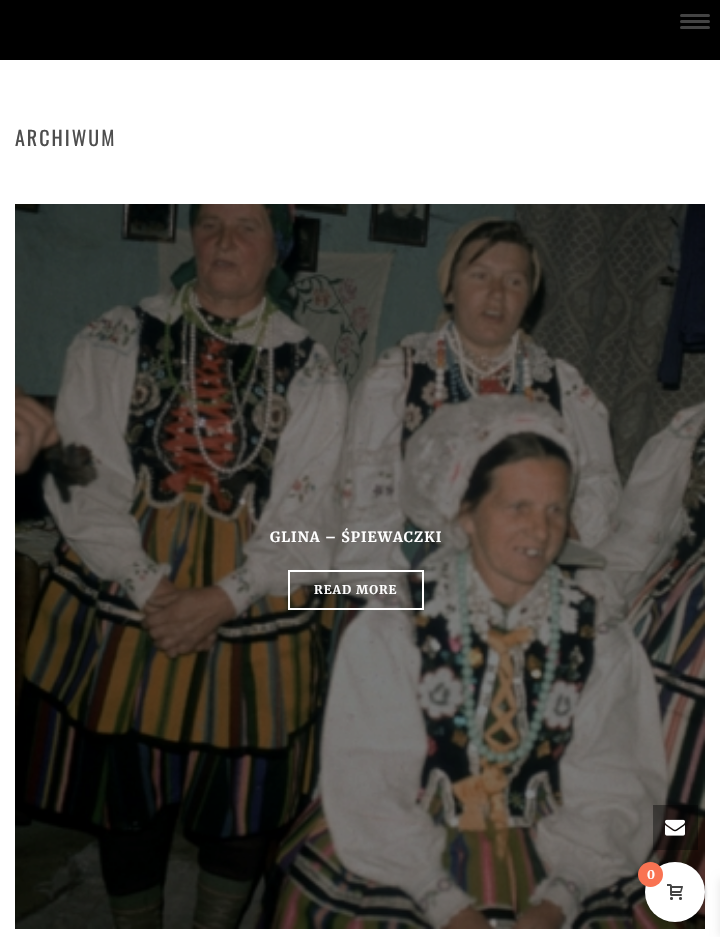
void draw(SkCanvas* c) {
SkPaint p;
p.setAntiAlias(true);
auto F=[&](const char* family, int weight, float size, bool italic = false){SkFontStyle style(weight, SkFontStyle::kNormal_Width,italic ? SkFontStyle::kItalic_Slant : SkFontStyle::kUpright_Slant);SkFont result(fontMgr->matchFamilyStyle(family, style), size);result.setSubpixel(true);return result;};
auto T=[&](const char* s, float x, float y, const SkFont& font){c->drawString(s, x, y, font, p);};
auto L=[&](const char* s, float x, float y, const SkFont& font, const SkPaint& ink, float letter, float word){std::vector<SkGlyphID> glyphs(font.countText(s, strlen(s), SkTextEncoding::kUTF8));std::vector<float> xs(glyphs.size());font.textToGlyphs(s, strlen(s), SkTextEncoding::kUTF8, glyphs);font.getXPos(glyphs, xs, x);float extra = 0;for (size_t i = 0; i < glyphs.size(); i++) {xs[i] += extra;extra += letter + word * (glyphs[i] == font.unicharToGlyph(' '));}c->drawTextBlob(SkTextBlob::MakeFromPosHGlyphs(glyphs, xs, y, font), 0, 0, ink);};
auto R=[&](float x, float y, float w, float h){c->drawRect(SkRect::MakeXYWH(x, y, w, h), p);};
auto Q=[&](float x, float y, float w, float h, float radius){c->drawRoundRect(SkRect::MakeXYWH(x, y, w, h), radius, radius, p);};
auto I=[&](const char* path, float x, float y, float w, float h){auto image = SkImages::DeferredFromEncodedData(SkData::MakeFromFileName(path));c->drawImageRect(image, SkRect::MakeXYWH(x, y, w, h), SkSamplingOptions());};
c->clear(0xffffffff);
p.setColor(0xff000000);
R(0,0,720,60);
p.setColor(0xff444444);
Q(680,14,30,3,1.5);
Q(680,20,30,3,1.5);
Q(680,26,30,3,1.5);
auto f1 = F("Oswald",400,20);
p.setColor(0xff4d4d4d);
L("ARCHIWUM",15,146,f1,p,2,0);
I("1.png",15,204,690,725);
auto f2 = F("Merriweather",700,14);
p.setColor(0xffffffff);
L("GLINA – ŚPIEWACZKI",270,542,f2,p,1,0);
p.setStroke(true);
p.setStrokeWidth(2);
c->drawRect(SkRect::MakeXYWH(289,571,134,38),p);
auto f3 = F("Merriweather",700,12);
p.setStroke(false);
L("READ MORE",314,594,f3,p,1,0);
p.setColor(0x66000000);
R(653,805,45,45);
I("2.png",665,819,20,17);
p.setColor(0x33000000);
p.setMaskFilter(SkMaskFilter::MakeBlur(kNormal_SkBlurStyle, 1.5));
c->drawRoundRect(SkRect::MakeXYWH(646,863,60,60),30,30,p);
p.setMaskFilter(nullptr);
p.setColor(0xffffffff);
c->drawCircle(675,892,30,p);
p.setColor(0xfff97352);
c->drawCircle(650.5,874.5,12.5,p);
p.setColor(0xffffffff);
T("0",647,879,f3);
I("3.png",667,884,16,16);
p.setColor(0x1a000000);
p.setMaskFilter(SkMaskFilter::MakeBlur(kNormal_SkBlurStyle, 5));
c->drawRect(SkRect::MakeXYWH(720,879,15,57),p);
p.setMaskFilter(nullptr);
}
